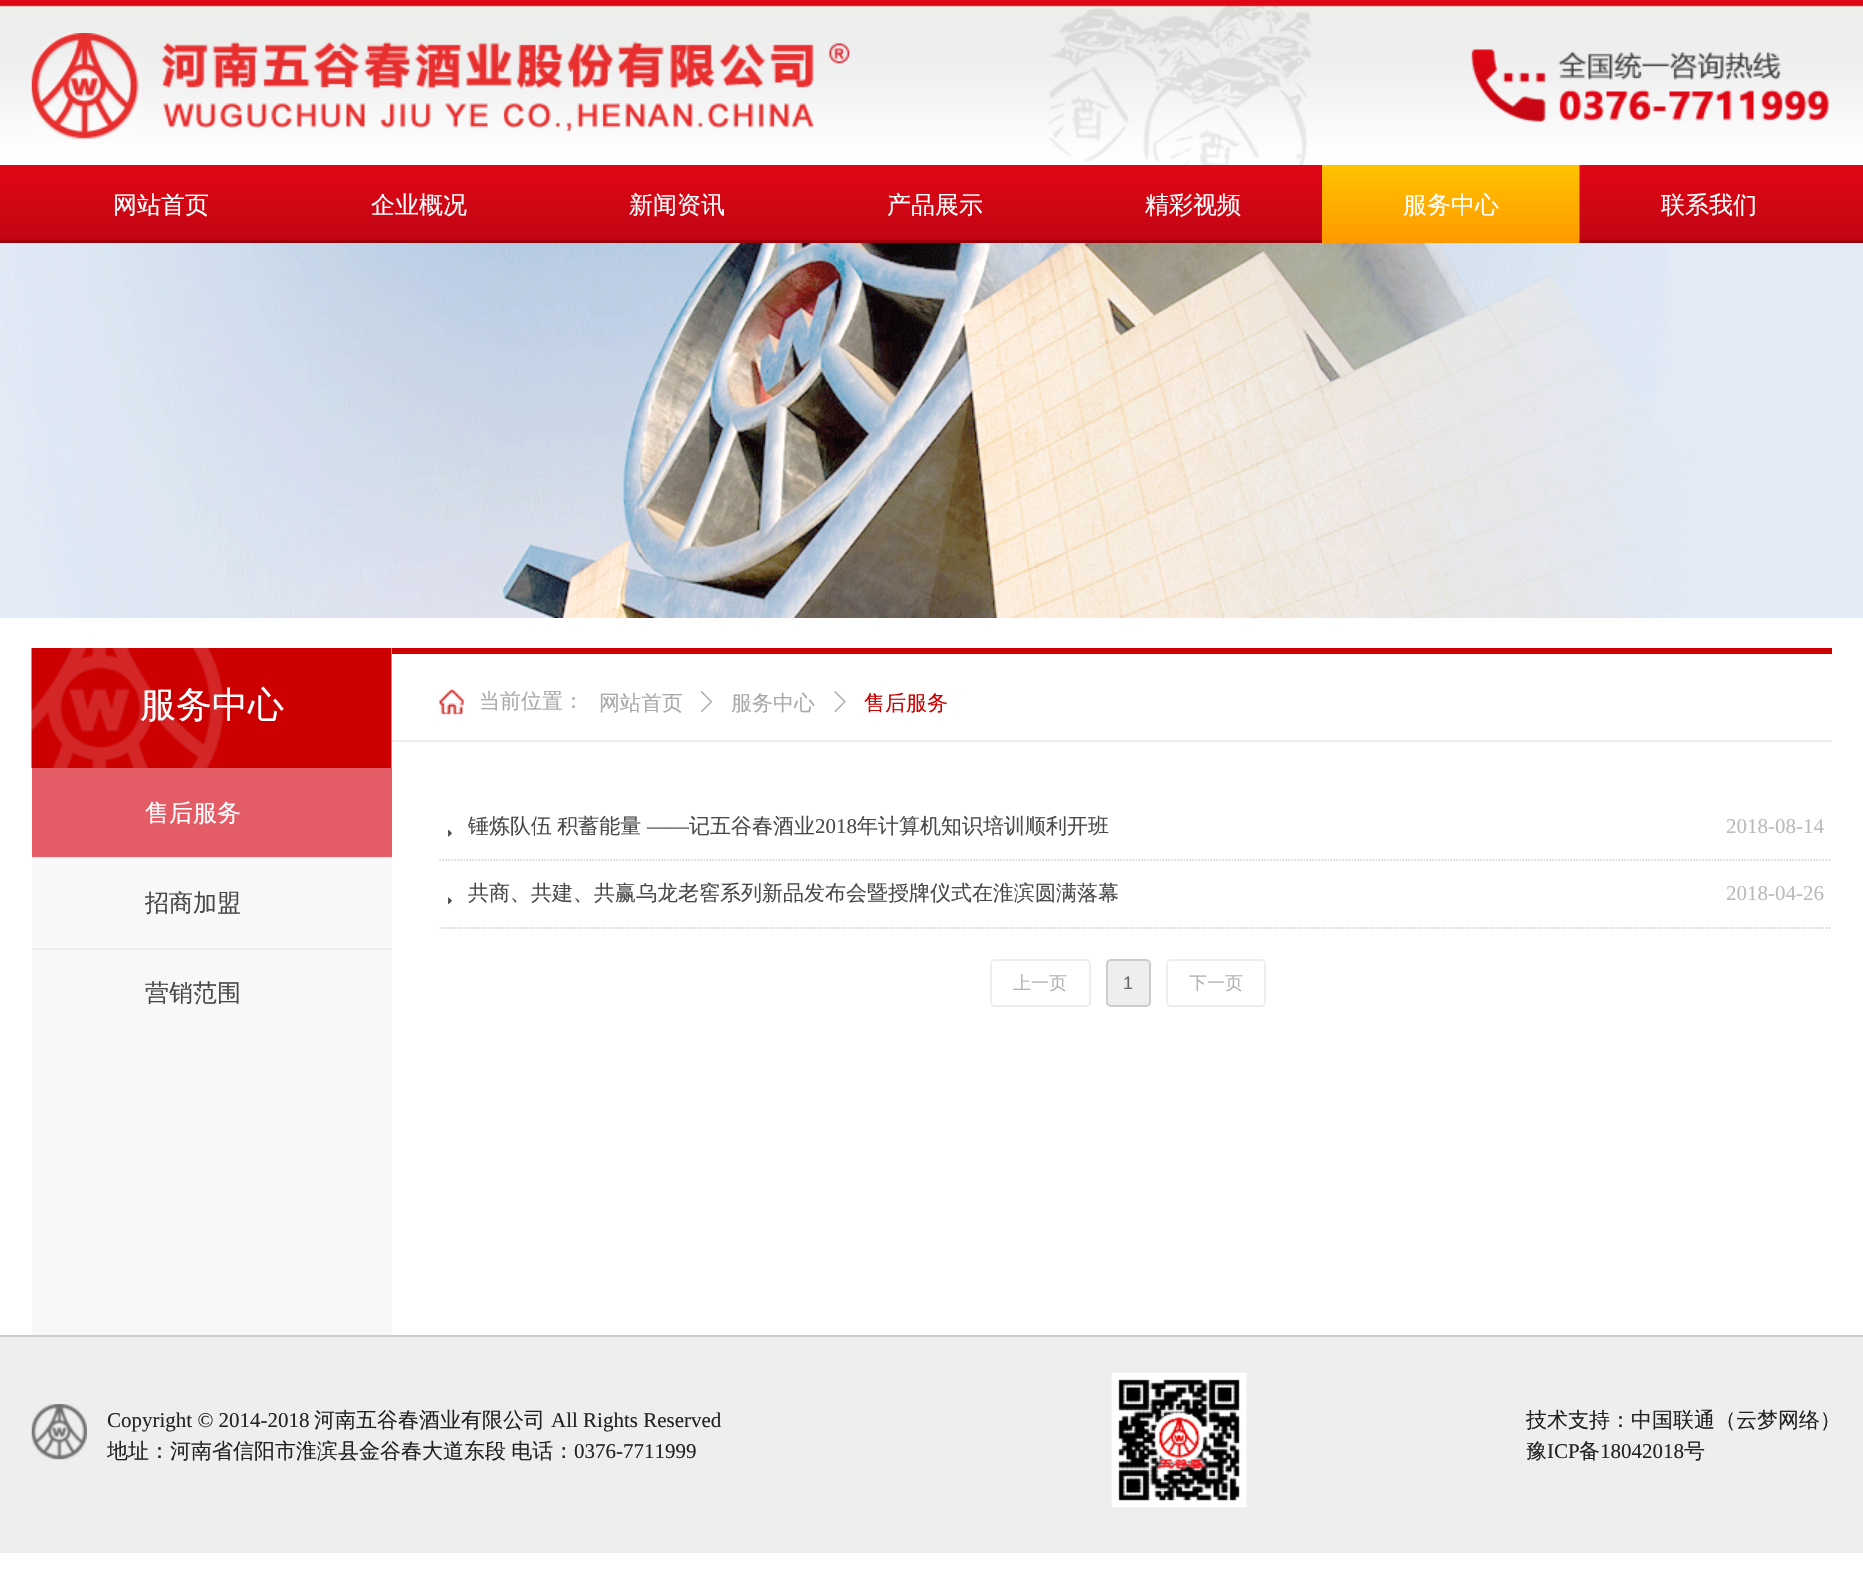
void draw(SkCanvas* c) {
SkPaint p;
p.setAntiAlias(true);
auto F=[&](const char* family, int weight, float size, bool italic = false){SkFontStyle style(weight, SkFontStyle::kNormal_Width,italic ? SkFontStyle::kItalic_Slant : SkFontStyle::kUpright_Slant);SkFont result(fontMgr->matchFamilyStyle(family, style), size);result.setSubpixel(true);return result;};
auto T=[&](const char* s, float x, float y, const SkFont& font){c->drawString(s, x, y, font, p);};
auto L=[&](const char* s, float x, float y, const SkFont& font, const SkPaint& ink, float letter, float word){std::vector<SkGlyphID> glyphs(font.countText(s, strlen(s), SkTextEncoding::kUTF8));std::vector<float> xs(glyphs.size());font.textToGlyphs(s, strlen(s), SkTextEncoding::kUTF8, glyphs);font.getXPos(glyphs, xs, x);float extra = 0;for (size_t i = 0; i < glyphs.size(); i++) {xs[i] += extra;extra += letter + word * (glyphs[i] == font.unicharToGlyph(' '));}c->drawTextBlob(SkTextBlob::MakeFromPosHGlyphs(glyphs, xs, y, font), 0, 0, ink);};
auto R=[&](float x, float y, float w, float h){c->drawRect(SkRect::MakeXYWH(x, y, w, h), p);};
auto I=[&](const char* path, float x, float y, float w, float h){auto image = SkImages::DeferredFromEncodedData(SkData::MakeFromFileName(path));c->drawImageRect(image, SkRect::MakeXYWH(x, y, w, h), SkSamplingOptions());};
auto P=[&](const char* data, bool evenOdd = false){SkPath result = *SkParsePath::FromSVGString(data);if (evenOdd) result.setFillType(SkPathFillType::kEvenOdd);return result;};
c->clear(0xffffffff);
I("1.png",0,0,1863,165);
I("2.png",31,33,819,107);
I("3.png",1471,49,358,73);
I("4.png",0,165,1863,78);
auto f1 = F("WenQuanYi Zen Hei",500,24);
p.setColor(0xffffffff);
T("网站首页",113,213,f1);
T("企业概况",371,213,f1);
T("新闻资讯",629,213,f1);
T("产品展示",887,213,f1);
T("精彩视频",1145,213,f1);
{
const SkColor colors[] = {0xffffc300,0xffff9900};
const float stops[] = {0,1};
const SkPoint ends[] = {{1451,165}, {1451,243}};
p.setShader(SkGradientShader::MakeLinear(ends, colors, stops, 2, SkTileMode::kClamp));
p.setAlpha(255);
}
R(1322,165,258,78);
p.setShader(nullptr);
p.setColor(0xffffffff);
T("服务中心",1403,213,f1);
I("5.png",1579,165,1,78);
c->save();
c->clipRect(SkRect::MakeXYWH(1661,165,96,78));
T("联系我们",1661,213,f1);
c->restore();
I("6.png",0,243,1863,375);
p.setColor(0xfff8f8f8);
R(32,648,360,687);
p.setColor(0xffcc0000);
R(392,648,1440,6);
I("7.png",31,648,361,120);
auto f2 = F("WenQuanYi Zen Hei",500,36);
p.setColor(0xffffffff);
T("服务中心",140,717,f2);
p.setColor(0xffeeeeee);
R(392,740,1440,2);
p.setColor(0xffe35c66);
R(32,768,360,89);
p.setColor(0xffffffff);
T("售后服务",145,821,f1);
p.setColor(0xffeeeeee);
R(32,857,360,2);
p.setColor(0xff494949);
T("招商加盟",145,911,f1);
p.setColor(0xffeeeeee);
R(32,948,360,2);
p.setColor(0xff494949);
T("营销范围",145,1001,f1);
I("8.png",439,689,25,26);
auto f3 = F("WenQuanYi Zen Hei",500,21);
p.setColor(0xffaaaaaa);
T("当前位置：",479,708,f3);
T("网站首页",599,710,f3);
I("9.png",700,691,12,21);
T("服务中心",731,710,f3);
I("10.png",834,691,12,21);
p.setColor(0xffcc0000);
T("售后服务",864,710,f3);
p.setStroke(true);
p.setStrokeWidth(1.5);
p.setColor(0xffcccccc);
p.setPathEffect(SkDashPathEffect::Make({{1.5f,1.5f}}, 0));
c->drawPath(P("M439.5 860h1392"),p);
p.setPathEffect(nullptr);
I("11.png",448,829,4,8);
p.setStroke(false);
p.setColor(0xff494949);
L("锤炼队伍 积蓄能量",468,833,f3,p,0,-1);
auto f4 = F("Liberation Serif",400,21);
T("——",647,833,f4);
T("记五谷春酒业",689,833,f3);
T("2018",815,833,f4);
T("年计算机知识培训顺利开班",857,833,f3);
p.setColor(0xffbbbbbb);
T("2018-08-14",1726,833,f4);
p.setStroke(true);
p.setColor(0xffcccccc);
p.setPathEffect(SkDashPathEffect::Make({{1.5f,1.5f}}, 0));
c->drawPath(P("M439.5 928h1392"),p);
p.setPathEffect(nullptr);
I("12.png",448,897,4,8);
p.setStroke(false);
p.setColor(0xff494949);
T("共商、共建、共赢乌龙老窖系列新品发布会暨授牌仪式在淮滨圆满落幕",468,900,f3);
p.setColor(0xffbbbbbb);
T("2018-04-26",1726,900,f4);
p.setStroke(true);
p.setStrokeWidth(2);
p.setColor(0xffeeeeee);
c->drawRoundRect(SkRect::MakeXYWH(991,960,99,46),4,4,p);
auto f5 = F("WenQuanYi Zen Hei",500,18);
p.setStroke(false);
p.setColor(0xffb3b3b3);
T("上一页",1013,989,f5);
p.setColor(0xffeeeeee);
c->drawRoundRect(SkRect::MakeXYWH(1107,960,43,46),4,4,p);
p.setStroke(true);
p.setColor(0xffcccccc);
c->drawRoundRect(SkRect::MakeXYWH(1107,960,43,46),4,4,p);
auto f6 = F("Liberation Sans",400,18);
p.setStroke(false);
p.setColor(0xff666666);
T("1",1123,989,f6);
p.setStroke(true);
p.setColor(0xffeeeeee);
c->drawRoundRect(SkRect::MakeXYWH(1167,960,98,46),4,4,p);
p.setStroke(false);
p.setColor(0xffb3b3b3);
T("下一页",1189,989,f5);
p.setColor(0xffeeeeee);
R(0,1337,1863,216);
p.setColor(0xffcccccc);
R(0,1335,1863,2);
I("13.png",31,1404,56,56);
p.setColor(0xff222222);
T("Copyright © 2014-2018",107,1427,f4);
T("河南五谷春酒业有限公司",314,1427,f3);
T("All Rights Reserved",551,1427,f4);
c->save();
c->clipRect(SkRect::MakeXYWH(107,1404,904,72));
L("地址：河南省信阳市淮滨县金谷春大道东段 电话：",107,1458,f3,p,0,-1);
c->restore();
T("0376-7711999",574,1458,f4);
I("14.png",1111,1372,136,136);
c->save();
c->clipRect(SkRect::MakeXYWH(1526,1404,330,72));
T("技术支持：中国联通（云梦网络）",1526,1427,f3);
c->restore();
T("豫",1526,1458,f3);
T("ICP",1547,1458,f4);
T("备",1579,1458,f3);
T("18042018",1600,1458,f4);
T("号",1684,1458,f3);
}
